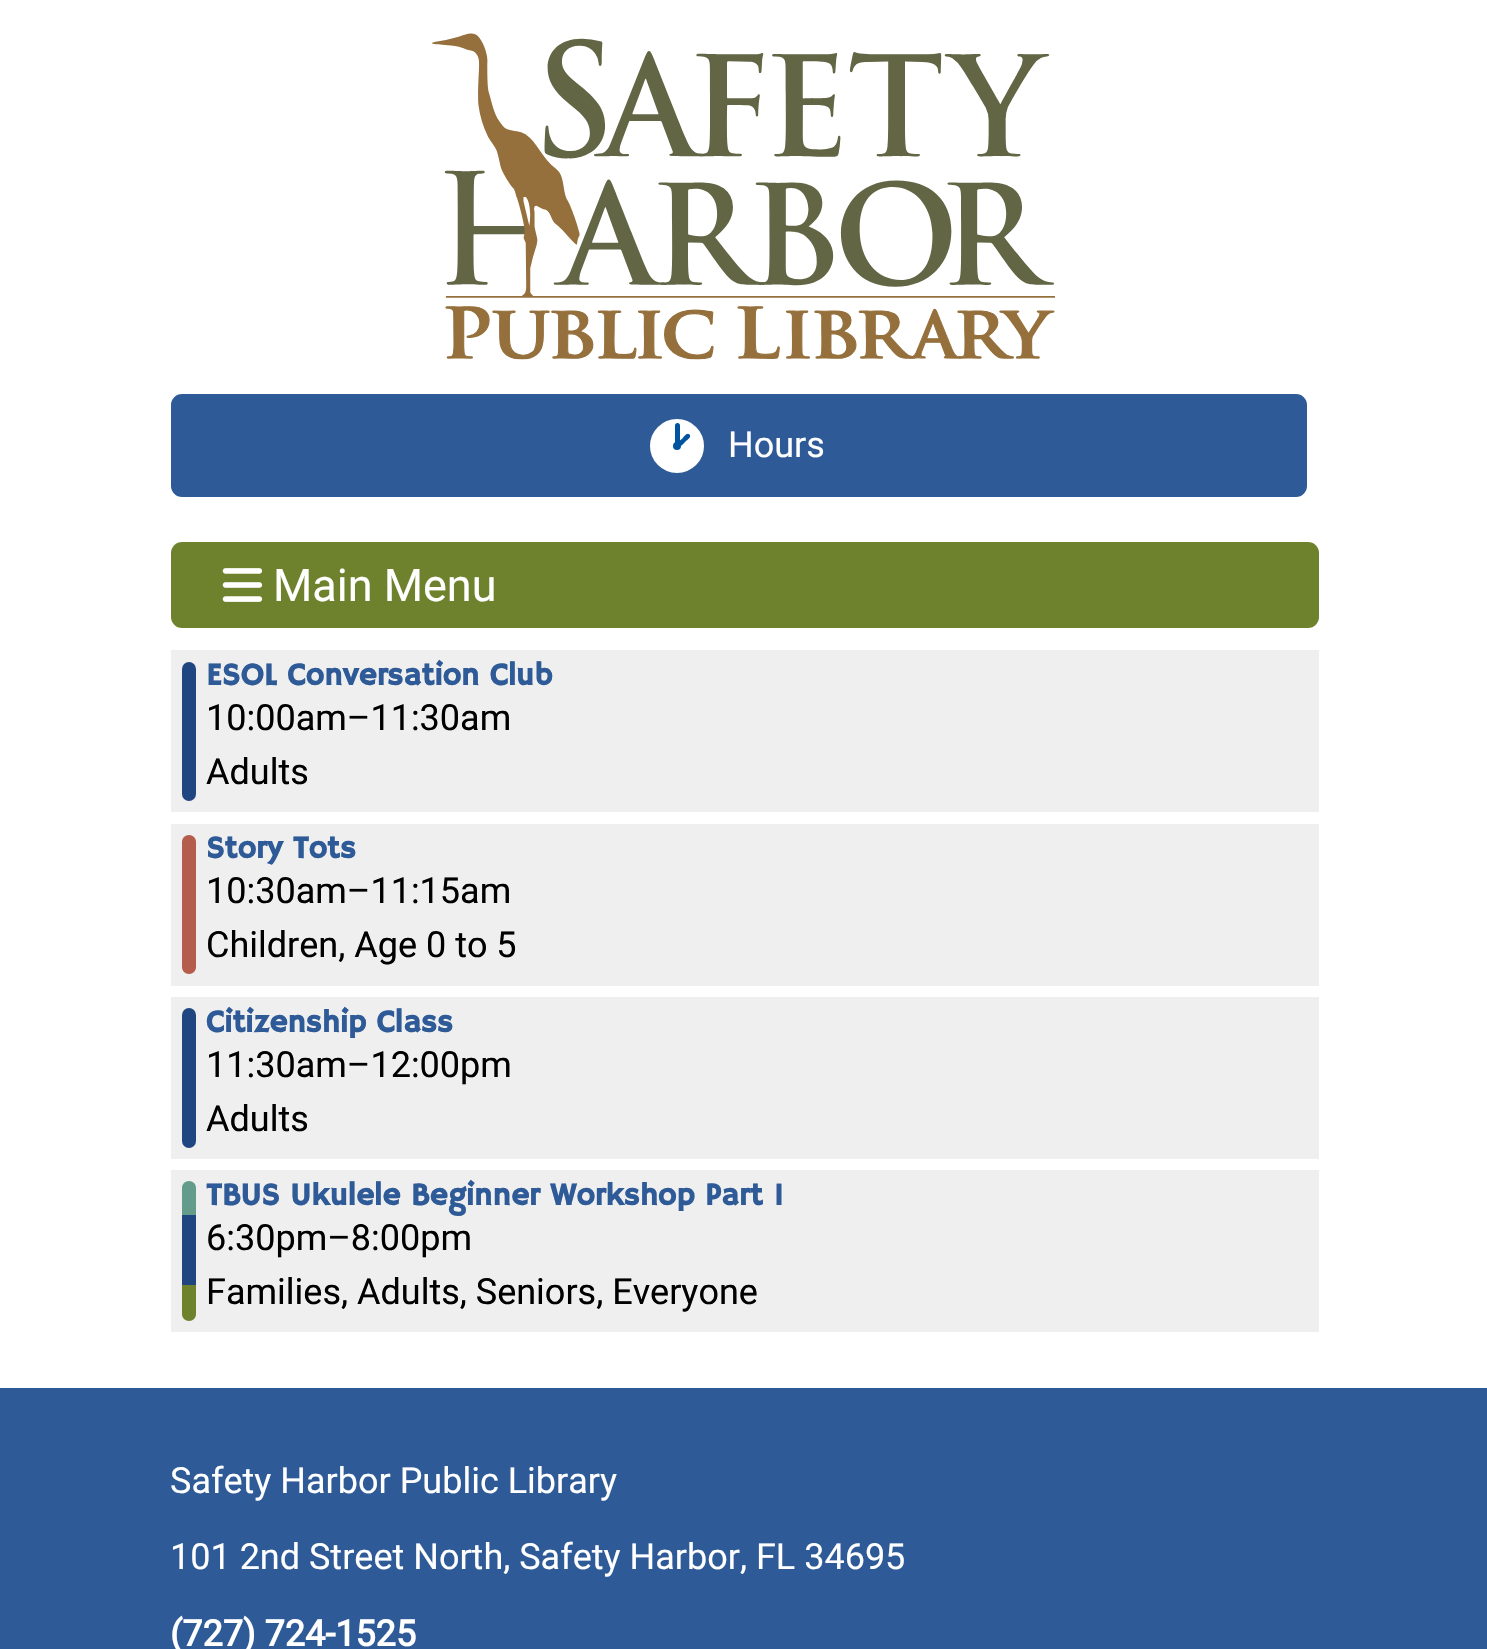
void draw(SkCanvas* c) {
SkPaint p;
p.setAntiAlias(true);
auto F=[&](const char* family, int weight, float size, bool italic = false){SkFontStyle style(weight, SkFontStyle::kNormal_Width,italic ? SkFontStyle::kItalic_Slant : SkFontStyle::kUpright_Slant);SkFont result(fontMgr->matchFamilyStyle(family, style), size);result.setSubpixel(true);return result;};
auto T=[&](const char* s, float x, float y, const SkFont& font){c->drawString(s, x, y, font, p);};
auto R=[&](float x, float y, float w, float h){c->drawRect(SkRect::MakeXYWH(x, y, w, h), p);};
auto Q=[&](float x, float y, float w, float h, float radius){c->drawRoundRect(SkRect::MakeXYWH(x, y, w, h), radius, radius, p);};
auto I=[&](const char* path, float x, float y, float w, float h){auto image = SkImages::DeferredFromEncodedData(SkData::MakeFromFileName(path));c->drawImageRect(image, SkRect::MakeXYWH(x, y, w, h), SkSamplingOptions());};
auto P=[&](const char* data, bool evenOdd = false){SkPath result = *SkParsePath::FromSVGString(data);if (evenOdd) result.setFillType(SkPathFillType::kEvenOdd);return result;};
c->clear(0xffffffff);
I("1.png",432,33,623,327);
p.setColor(0xff2e5a97);
c->drawRoundRect(SkRect::MakeXYWH(172,395,1134,101),10,10,p);
p.setStroke(true);
p.setStrokeWidth(2);
c->drawRoundRect(SkRect::MakeXYWH(172,395,1134,101),10,10,p);
p.setStroke(false);
p.setColor(0xff00549f);
c->drawCircle(677,446,15.5,p);
p.setStroke(true);
p.setStrokeWidth(23);
p.setColor(0xffffffff);
c->drawCircle(677,446,15.5,p);
p.setStroke(false);
p.setColor(0xff00549f);
Q(675,423,5,23,2.5);
c->drawPath(P("M689.5 434.5c2.5 2.5-2.5 5.5-4 7c-1.5 1.5-5 6.5-7 4c-2.5-2.5 2.5-6 4-7c1-1.5 4.5-6.5 7-4z"),p);
auto f1 = F("Roboto",400,36);
p.setColor(0xffffffff);
T("Hours",728,457,f1);
p.setColor(0xff6e822e);
Q(171,542,1148,86,11);
I("2.png",222,568,41,34);
auto f2 = F("Roboto",400,45);
p.setColor(0xffffffff);
T("Main Menu",273,601,f2);
p.setColor(0xffefefef);
R(171,650,1148,162);
p.setColor(0xff1f4680);
Q(182,662,14,139,7);
auto f3 = F("Hammersmith One",700,31.5);
p.setColor(0xff2e5a97);
T("ESOL Conversation Club",206,685,f3);
p.setColor(0xff000000);
T("10:00am–11:30am",206,730,f1);
T("Adults",206,784,f1);
p.setColor(0xffefefef);
R(171,824,1148,162);
p.setColor(0xffb55d4c);
c->drawPath(P("M189 835c4 0 7 3 7 7v63h-14v-63c0-4 3-7 7-7z"),p);
c->drawPath(P("M182 905h14v62c0 4-3 7-7 7c-4 0-7-3-7-7z"),p);
p.setColor(0xff2e5a97);
T("Story Tots",206,858,f3);
p.setColor(0xff000000);
T("10:30am–11:15am",206,903,f1);
T("Children, Age 0 to 5",206,957,f1);
p.setColor(0xffefefef);
R(171,997,1148,162);
p.setColor(0xff1f4680);
Q(182,1008,14,140,7);
p.setColor(0xff2e5a97);
T("Citizenship Class",206,1032,f3);
p.setColor(0xff000000);
T("11:30am–12:00pm",206,1077,f1);
T("Adults",206,1131,f1);
p.setColor(0xffefefef);
R(171,1170,1148,162);
p.setColor(0xff639c8b);
c->drawPath(P("M189 1181c4 0 7 3 7 7v27h-14v-27c0-4 3-7 7-7z"),p);
p.setColor(0xff1f4680);
R(182,1215,14,70);
p.setColor(0xff6e822e);
c->drawPath(P("M182 1285h14v29c0 4-3 7-7 7c-4 0-7-3-7-7z"),p);
p.setColor(0xff2e5a97);
T("TBUS Ukulele Beginner Workshop Part 1",206,1205,f3);
p.setColor(0xff000000);
T("6:30pm–8:00pm",206,1250,f1);
T("Families, Adults, Seniors, Everyone",206,1304,f1);
p.setColor(0xff2e5a97);
R(0,1388,1487,261);
p.setColor(0xffffffff);
T("Safety Harbor Public Library",170,1493,f1);
T("101 2nd Street North, Safety Harbor, FL 34695",170,1569,f1);
auto f4 = F("Roboto",700,36);
T("(727) 724-1525",170,1646,f4);
}
